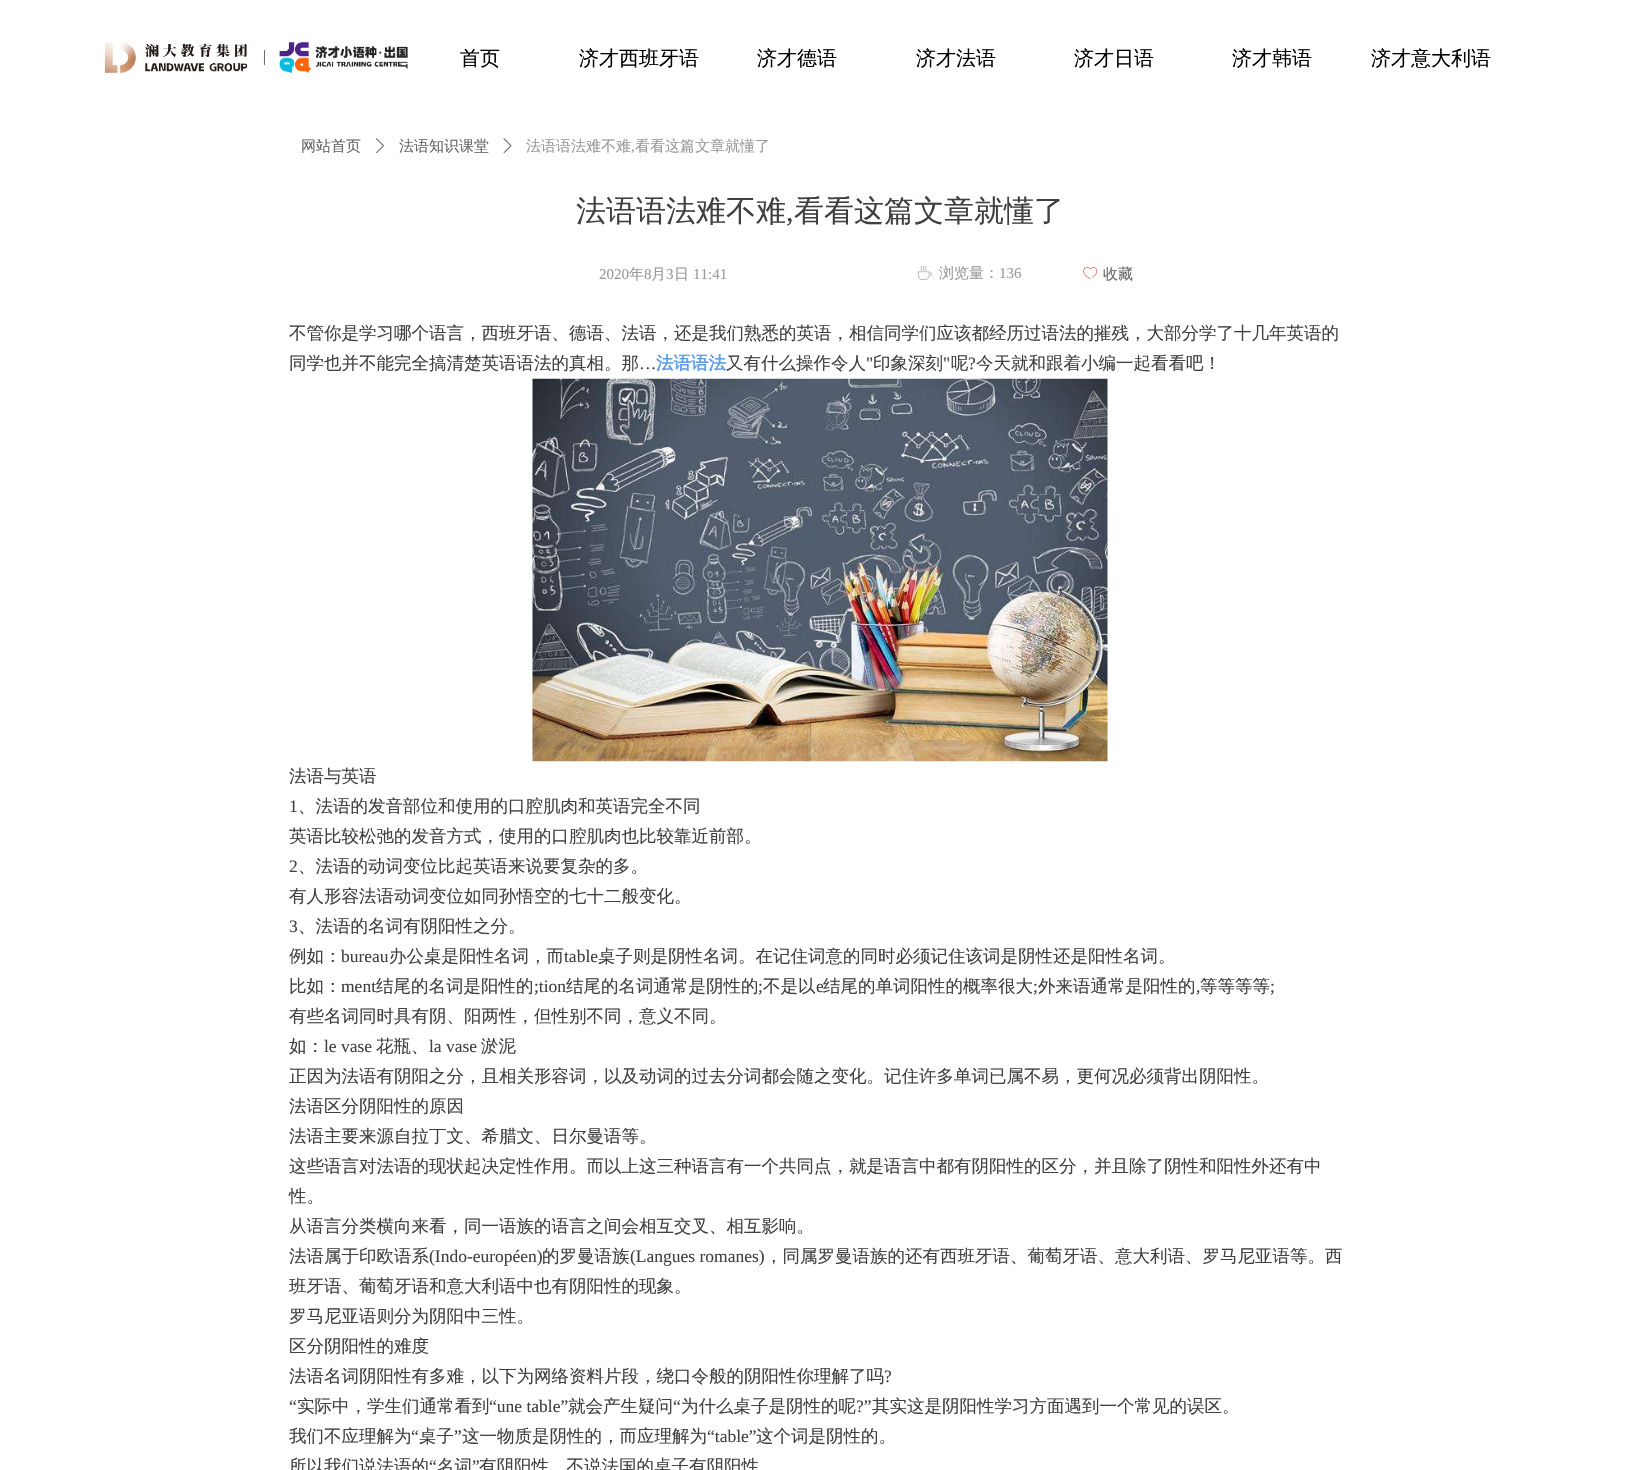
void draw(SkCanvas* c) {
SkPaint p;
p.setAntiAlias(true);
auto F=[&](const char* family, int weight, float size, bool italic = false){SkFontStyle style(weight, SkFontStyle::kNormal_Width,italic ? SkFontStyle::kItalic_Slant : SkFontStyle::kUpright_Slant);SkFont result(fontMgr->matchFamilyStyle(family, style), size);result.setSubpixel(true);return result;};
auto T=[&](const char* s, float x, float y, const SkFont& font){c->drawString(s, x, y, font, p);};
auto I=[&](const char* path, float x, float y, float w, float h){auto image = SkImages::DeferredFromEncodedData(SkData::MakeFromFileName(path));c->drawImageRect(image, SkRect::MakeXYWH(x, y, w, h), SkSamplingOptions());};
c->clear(0xffffffff);
I("1.png",104,42,304,31);
auto f1 = F("WenQuanYi Zen Hei",500,20);
p.setColor(0xff000000);
T("首页",460,65,f1);
T("济才西班牙语",579,65,f1);
T("济才德语",757,65,f1);
T("济才法语",916,65,f1);
T("济才日语",1074,65,f1);
T("济才韩语",1232,65,f1);
T("济才意大利语",1371,65,f1);
auto f2 = F("WenQuanYi Zen Hei",500,15);
p.setColor(0xff666666);
T("网站首页",301,151,f2);
I("2.png",376,138,8,16);
T("法语知识课堂",399,151,f2);
I("3.png",503,138,9,16);
p.setColor(0xff999999);
T("法语语法难不难",526,151,f2);
auto f3 = F("Liberation Serif",400,15);
T(",",631,151,f3);
T("看看这篇文章就懂了",635,151,f2);
auto f4 = F("WenQuanYi Zen Hei",500,30);
p.setColor(0xff404040);
T("法语语法难不难",576,221,f4);
auto f5 = F("Liberation Serif",400,30);
T(",",786,221,f5);
T("看看这篇文章就懂了",794,221,f4);
p.setColor(0xff999999);
T("2020",599,279,f3);
T("年",629,279,f2);
T("8",644,279,f3);
T("月",651,279,f2);
T("3",666,279,f3);
T("日",674,279,f2);
T("11:41",693,279,f3);
I("4.png",918,265,15,15);
T("浏览量：",939,278,f2);
T("136",999,278,f3);
I("5.png",1083,267,15,13);
p.setColor(0xff666666);
T("收藏",1103,279,f2);
auto f6 = F("WenQuanYi Zen Hei",500,17.5);
p.setColor(0xff404040);
T("不管你是学习哪个语言，西班牙语、德语、法语，还是我们熟悉的英语，相信同学们应该都经历过语法的摧残，大部分学了十几年英语的",289,339,f6);
T("同学也并不能完全搞清楚英语语法的真相。那",289,369,f6);
auto f7 = F("Liberation Serif",400,17.5);
T("…",639,369,f7);
auto f8 = F("WenQuanYi Zen Hei",700,17.5);
p.setColor(0xff609ee9);
T("法语语法",656,369,f8);
p.setColor(0xff404040);
T("又有什么操作令人",726,369,f6);
T("\"",866,369,f7);
T("印象深刻",873,369,f6);
T("\"",943,369,f7);
T("呢",951,369,f6);
T("?",968,369,f7);
T("今天就和跟着小编一起看看吧！",976,369,f6);
I("6.png",532,378,576,384);
T("法语与英语",289,782,f6);
T("1",289,812,f7);
T("、法语的发音部位和使用的口腔肌肉和英语完全不同",298,812,f6);
T("英语比较松弛的发音方式，使用的口腔肌肉也比较靠近前部。",289,842,f6);
T("2",289,872,f7);
T("、法语的动词变位比起英语来说要复杂的多。",298,872,f6);
T("有人形容法语动词变位如同孙悟空的七十二般变化。",289,902,f6);
T("3",289,932,f7);
T("、法语的名词有阴阳性之分。",298,932,f6);
T("例如：",289,962,f6);
T("bureau",341,962,f7);
T("办公桌是阳性名词，而",389,962,f6);
T("table",564,962,f7);
T("桌子则是阴性名词。在记住词意的同时必须记住该词是阴性还是阳性名词。",598,962,f6);
T("比如：",289,992,f6);
T("ment",341,992,f7);
T("结尾的名词是阳性的",376,992,f6);
T(";tion",534,992,f7);
T("结尾的名词通常是阴性的",566,992,f6);
T(";",758,992,f7);
T("不是以",763,992,f6);
T("e",816,992,f7);
T("结尾的单词阳性的概率很大",823,992,f6);
T(";",1033,992,f7);
T("外来语通常是阳性的",1038,992,f6);
T(",",1196,992,f7);
T("等等等等",1200,992,f6);
T(";",1270,992,f7);
T("有些名词同时具有阴、阳两性，但性别不同，意义不同。",289,1022,f6);
T("如：",289,1052,f6);
T("le vase",324,1052,f7);
T("花瓶、",376,1052,f6);
T("la vase",429,1052,f7);
T("淤泥",481,1052,f6);
T("正因为法语有阴阳之分，且相关形容词，以及动词的过去分词都会随之变化。记住许多单词已属不易，更何况必须背出阴阳性。",289,1082,f6);
T("法语区分阴阳性的原因",289,1112,f6);
T("法语主要来源自拉丁文、希腊文、日尔曼语等。",289,1142,f6);
T("这些语言对法语的现状起决定性作用。而以上这三种语言有一个共同点，就是语言中都有阴阳性的区分，并且除了阴性和阳性外还有中",289,1172,f6);
T("性。",289,1202,f6);
T("从语言分类横向来看，同一语族的语言之间会相互交叉、相互影响。",289,1232,f6);
T("法语属于印欧语系",289,1262,f6);
T("(Indo-européen)",429,1262,f7);
T("的罗曼语族",542,1262,f6);
T("(Langues romanes)",630,1262,f7);
T("，同属罗曼语族的还有西班牙语、葡萄牙语、意大利语、罗马尼亚语等。西",765,1262,f6);
T("班牙语、葡萄牙语和意大利语中也有阴阳性的现象。",289,1292,f6);
T("罗马尼亚语则分为阴阳中三性。",289,1322,f6);
T("区分阴阳性的难度",289,1352,f6);
T("法语名词阴阳性有多难，以下为网络资料片段，绕口令般的阴阳性你理解了吗",289,1382,f6);
T("?",884,1382,f7);
T("“",289,1412,f7);
T("实际中，学生们通常看到",297,1412,f6);
T("“une table”",489,1412,f7);
T("就会产生疑问",568,1412,f6);
T("“",673,1412,f7);
T("为什么桌子是阴性的呢",681,1412,f6);
T("?”",856,1412,f7);
T("其实这是阴阳性学习方面遇到一个常见的误区。",872,1412,f6);
T("我们不应理解为",289,1442,f6);
T("“",411,1442,f7);
T("桌子",419,1442,f6);
T("”",454,1442,f7);
T("这一物质是阴性的，而应理解为",462,1442,f6);
T("“table”",707,1442,f7);
T("这个词是阴性的。",756,1442,f6);
T("所以我们说法语的",289,1472,f6);
T("“",429,1472,f7);
T("名词",437,1472,f6);
T("”",472,1472,f7);
T("有阴阳性，不说法国的桌子有阴阳性",479,1472,f6);
}
